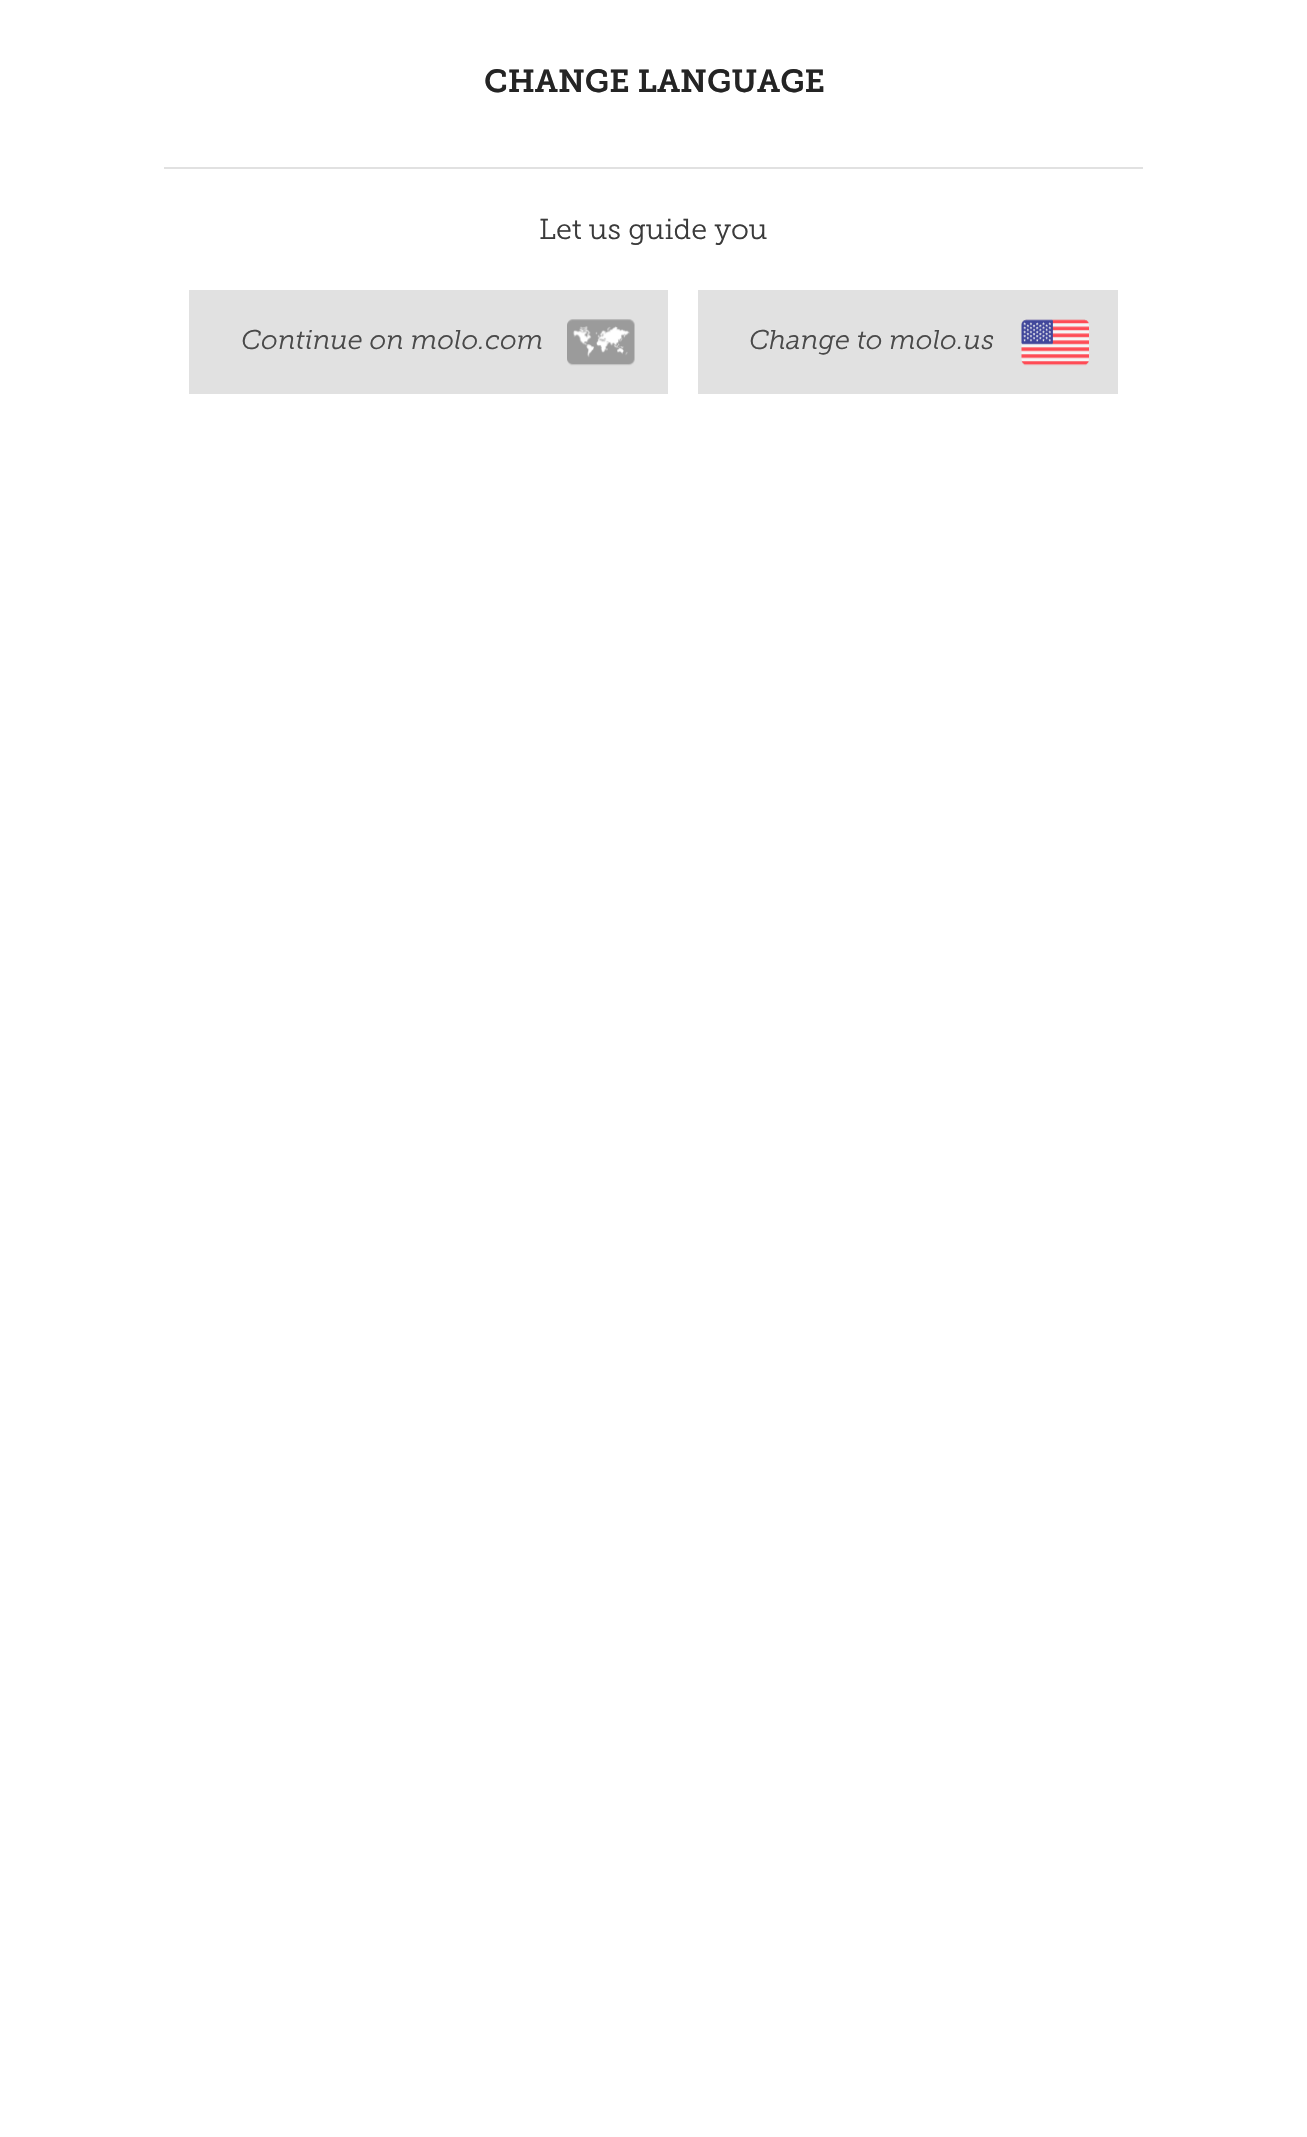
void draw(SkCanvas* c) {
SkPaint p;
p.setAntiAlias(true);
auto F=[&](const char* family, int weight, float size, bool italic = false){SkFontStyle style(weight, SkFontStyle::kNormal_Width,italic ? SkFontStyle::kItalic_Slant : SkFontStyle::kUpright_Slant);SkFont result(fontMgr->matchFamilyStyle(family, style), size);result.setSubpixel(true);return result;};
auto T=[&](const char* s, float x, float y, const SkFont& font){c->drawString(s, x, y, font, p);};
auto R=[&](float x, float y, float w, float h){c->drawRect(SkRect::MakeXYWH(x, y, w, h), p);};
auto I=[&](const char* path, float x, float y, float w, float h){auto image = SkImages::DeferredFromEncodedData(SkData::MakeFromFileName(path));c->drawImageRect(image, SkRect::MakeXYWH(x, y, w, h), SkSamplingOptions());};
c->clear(0xffffffff);
p.setColor(0xffe1e1e1);
R(164,167,979,2);
auto f1 = F("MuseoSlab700",400,31.75);
p.setColor(0xff242424);
T("CHANGE LANGUAGE",484,92,f1);
auto f2 = F("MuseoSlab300",400,28.75);
p.setColor(0xff3b3b3b);
T("Let us guide you",539,239,f2);
p.setColor(0xffe1e1e1);
R(189,290,479,104);
I("1.png",567,319,68,47);
auto f3 = F("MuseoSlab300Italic",400,27);
p.setColor(0xff494949);
T("Continue on molo.com",241,349,f3);
p.setColor(0xffe1e1e1);
R(698,290,420,104);
I("2.png",1021,319,68,47);
p.setColor(0xff494949);
T("Change to molo.us",749,349,f3);
}
